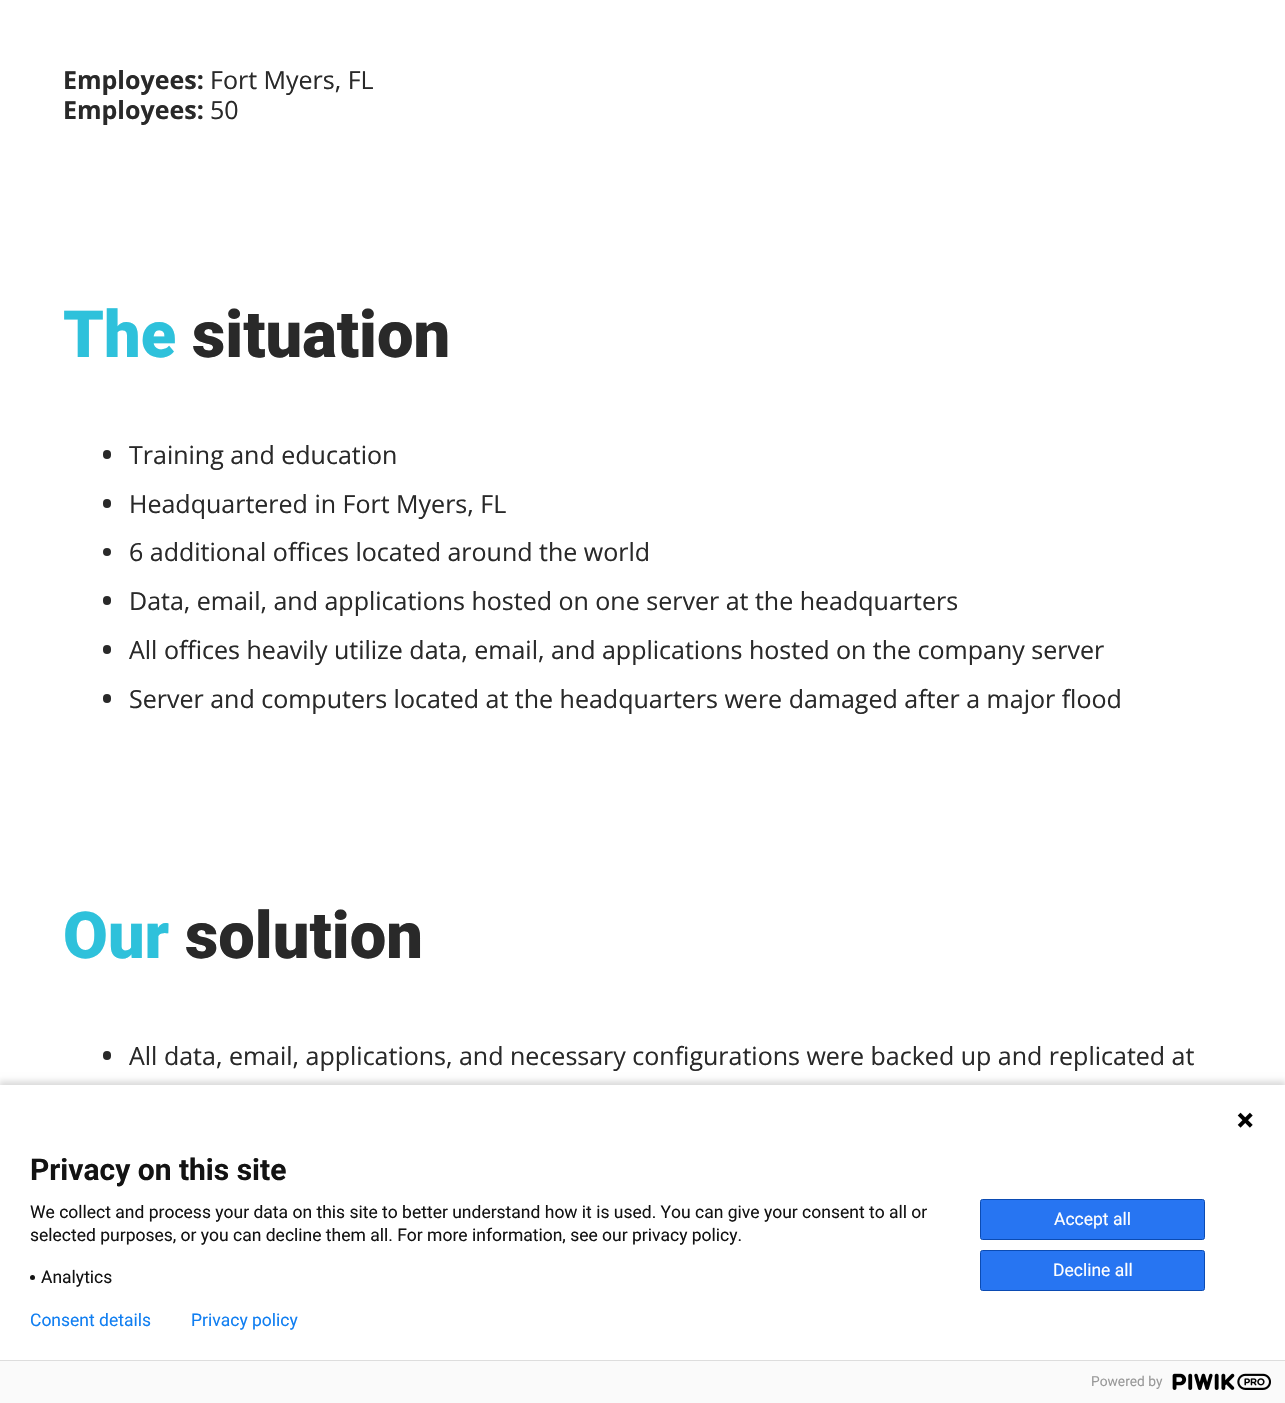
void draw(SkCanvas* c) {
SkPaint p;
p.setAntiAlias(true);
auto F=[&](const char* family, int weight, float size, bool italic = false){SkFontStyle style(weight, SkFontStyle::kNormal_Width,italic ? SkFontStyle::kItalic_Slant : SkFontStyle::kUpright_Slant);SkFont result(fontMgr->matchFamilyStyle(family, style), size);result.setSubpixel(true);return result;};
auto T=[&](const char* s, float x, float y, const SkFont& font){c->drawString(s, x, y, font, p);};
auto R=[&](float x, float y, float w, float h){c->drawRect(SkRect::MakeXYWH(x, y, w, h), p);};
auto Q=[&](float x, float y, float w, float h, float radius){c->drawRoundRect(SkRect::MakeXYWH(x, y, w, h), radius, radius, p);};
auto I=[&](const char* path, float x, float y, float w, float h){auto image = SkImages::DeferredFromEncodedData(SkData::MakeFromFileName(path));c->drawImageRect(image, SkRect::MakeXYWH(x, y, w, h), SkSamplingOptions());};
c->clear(0xffffffff);
auto f1 = F("Open Sans",700,25);
p.setColor(0xff292929);
T("Employees:",63,89,f1);
auto f2 = F("Open Sans",400,25);
T("Fort Myers, FL",210,89,f2);
T("Employees:",63,119,f1);
T("50",210,119,f2);
auto f3 = F("Roboto",900,65);
p.setColor(0xff2ec1db);
T("The",63,357,f3);
p.setColor(0xff292929);
T("situation",192,357,f3);
Q(103,450,8,9,4);
T("Training and education",129,464,f2);
Q(103,499,8,9,4);
T("Headquartered in Fort Myers, FL",129,513,f2);
c->drawCircle(107,552,4,p);
T("6 additional offices located around the world",129,561,f2);
Q(103,596,8,9,4);
T("Data, email, and applications hosted on one server at the headquarters",129,610,f2);
Q(103,645,8,9,4);
T("All offices heavily utilize data, email, and applications hosted on the company server",129,659,f2);
Q(103,694,8,9,4);
T("Server and computers located at the headquarters were damaged after a major flood",129,708,f2);
p.setColor(0xff2ec1db);
T("Our",63,958,f3);
p.setColor(0xff292929);
T("solution",185,958,f3);
Q(103,1051,8,9,4);
T("All data, email, applications, and necessary configurations were backed up and replicated at",129,1065,f2);
p.setColor(0x24000000);
p.setMaskFilter(SkMaskFilter::MakeBlur(kNormal_SkBlurStyle, 3));
c->drawRect(SkRect::MakeXYWH(-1,1081,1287,322),p);
p.setMaskFilter(nullptr);
p.setColor(0xffffffff);
R(0,1085,1285,275);
I("1.png",1237,1112,16,16);
auto f4 = F("Roboto",700,30);
p.setColor(0xff131313);
T("Privacy on this site",30,1180,f4);
auto f5 = F("Roboto",400,17.5);
T("We collect and process your data on this site to better understand how it is used. You can give your consent to all or",30,1218,f5);
T("selected purposes, or you can decline them all. For more information, see our privacy policy.",30,1241,f5);
c->drawCircle(32.5,1277.5,2.5,p);
T("Analytics",41,1283,f5);
p.setColor(0xff2775f2);
c->drawRoundRect(SkRect::MakeXYWH(980.5,1199.5,224,40),2,2,p);
p.setStroke(true);
p.setStrokeWidth(1);
p.setColor(0xff0b4bb3);
c->drawRoundRect(SkRect::MakeXYWH(980.5,1199.5,224,40),2,2,p);
p.setStroke(false);
p.setColor(0xffffffff);
T("Accept all",1054,1225,f5);
p.setColor(0xff2775f2);
c->drawRoundRect(SkRect::MakeXYWH(980.5,1250.5,224,40),2,2,p);
p.setStroke(true);
p.setColor(0xff0b4bb3);
c->drawRoundRect(SkRect::MakeXYWH(980.5,1250.5,224,40),2,2,p);
p.setStroke(false);
p.setColor(0xffffffff);
T("Decline all",1053,1276,f5);
p.setColor(0xff107ef1);
T("Consent details",30,1326,f5);
T("Privacy policy",191,1326,f5);
p.setColor(0xfffafafa);
R(0,1361,1285,42);
p.setColor(0xffdddddd);
R(0,1360,1285,1);
auto f6 = F("Roboto",400,13.75);
p.setColor(0xff999999);
T("Powered by",1091,1386,f6);
I("2.png",1172,1373,99,17);
}
